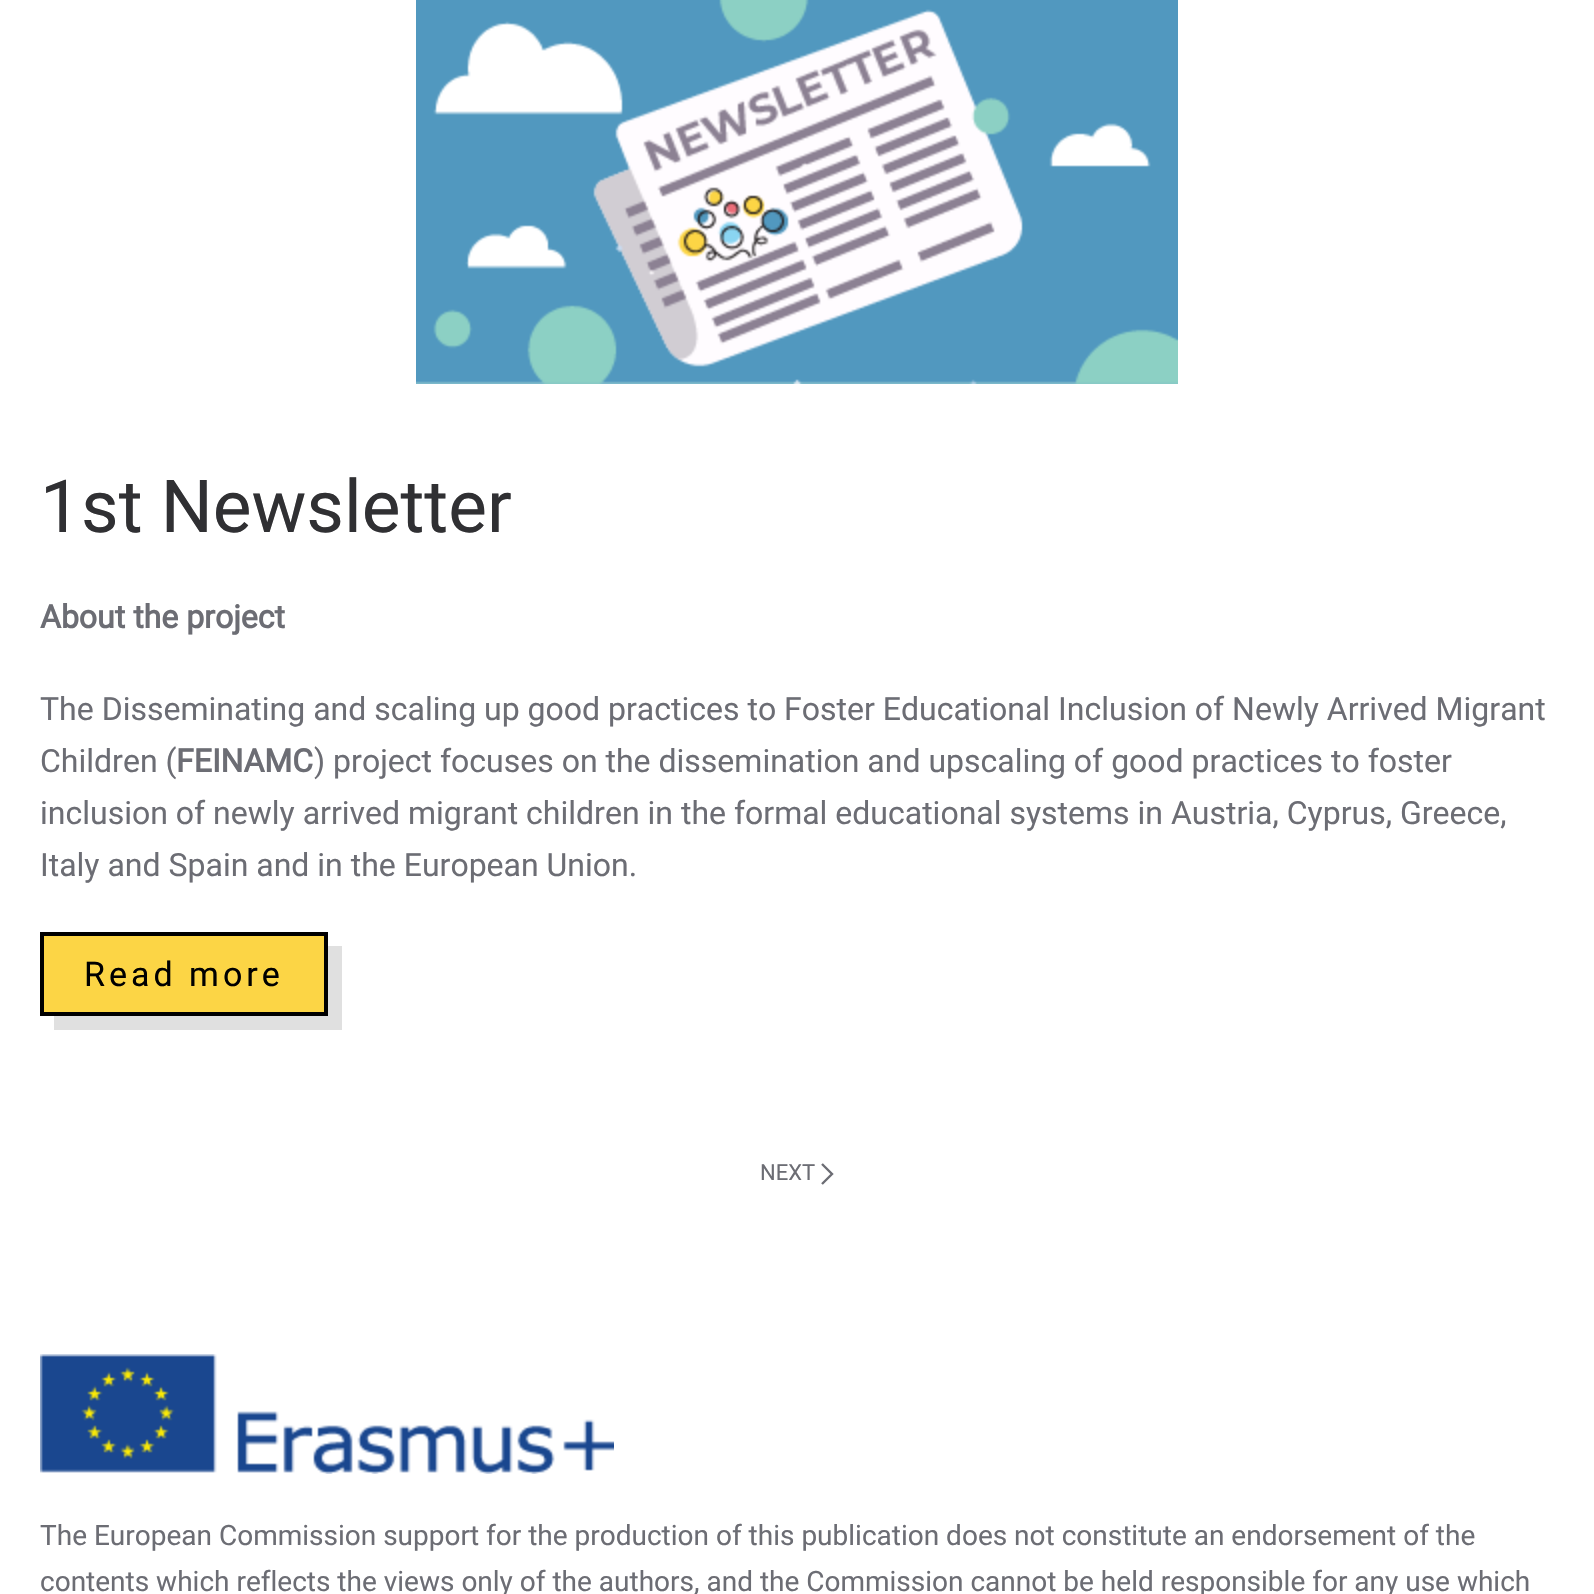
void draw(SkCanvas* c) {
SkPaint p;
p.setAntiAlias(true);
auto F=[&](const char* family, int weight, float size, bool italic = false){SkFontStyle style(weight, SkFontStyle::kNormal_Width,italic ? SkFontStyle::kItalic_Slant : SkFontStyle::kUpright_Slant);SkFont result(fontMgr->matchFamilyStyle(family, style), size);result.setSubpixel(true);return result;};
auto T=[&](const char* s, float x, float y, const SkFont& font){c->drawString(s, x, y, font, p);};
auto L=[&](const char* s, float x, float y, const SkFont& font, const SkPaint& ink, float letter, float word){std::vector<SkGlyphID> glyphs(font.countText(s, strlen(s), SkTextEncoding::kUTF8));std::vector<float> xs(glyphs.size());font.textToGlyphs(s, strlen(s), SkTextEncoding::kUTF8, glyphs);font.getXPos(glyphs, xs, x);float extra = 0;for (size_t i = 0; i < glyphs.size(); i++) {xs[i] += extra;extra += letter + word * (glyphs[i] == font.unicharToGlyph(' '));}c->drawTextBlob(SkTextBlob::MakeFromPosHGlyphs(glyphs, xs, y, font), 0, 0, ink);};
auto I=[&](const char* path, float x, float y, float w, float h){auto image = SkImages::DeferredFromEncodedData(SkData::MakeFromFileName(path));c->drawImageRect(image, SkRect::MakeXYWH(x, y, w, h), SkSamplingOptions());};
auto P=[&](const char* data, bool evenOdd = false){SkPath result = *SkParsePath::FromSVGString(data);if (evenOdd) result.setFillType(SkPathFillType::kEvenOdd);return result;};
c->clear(0xffffffff);
I("1.png",416,0,762,384);
auto f1 = F("Roboto",400,73);
p.setColor(0xff303033);
T("1st Newsletter",40,532,f1);
auto f2 = F("Roboto",700,32);
p.setColor(0xff6c6d74);
T("About the project",40,628,f2);
auto f3 = F("Roboto",400,32);
T("The Disseminating and scaling up good practices to Foster Educational Inclusion of Newly Arrived Migrant",40,720,f3);
T("Children (",40,772,f3);
T("FEINAMC",176,772,f2);
T(") project focuses on the dissemination and upscaling of good practices to foster",314,772,f3);
T("inclusion of newly arrived migrant children in the formal educational systems in Austria, Cyprus, Greece,",40,824,f3);
T("Italy and Spain and in the European Union.",40,876,f3);
p.setColor(0xffe0e0e0);
c->drawPath(P("M54 1016v14h288v-84h-14v70z"),p);
p.setColor(0xfffcd545);
c->drawRect(SkRect::MakeXYWH(42,934,284,80),p);
p.setStroke(true);
p.setStrokeWidth(4);
p.setColor(0xff000000);
c->drawRect(SkRect::MakeXYWH(42,934,284,80),p);
auto f4 = F("Roboto",400,34);
p.setStroke(false);
L("Read more",84,986,f4,p,4,0);
auto f5 = F("Roboto",400,22);
p.setColor(0xff6c6d74);
T("NEXT",760,1180,f5);
p.setStroke(true);
p.setStrokeWidth(2.4);
c->drawPath(P("M822 1164l10 10l-10 10"),p);
I("2.png",40,1354,574,120);
auto f6 = F("Roboto",400,28);
p.setStroke(false);
T("The European Commission support for the production of this publication does not constitute an endorsement of the",40,1545,f6);
T("contents which reflects the views only of the authors, and the Commission cannot be held responsible for any use which",40,1591,f6);
}
